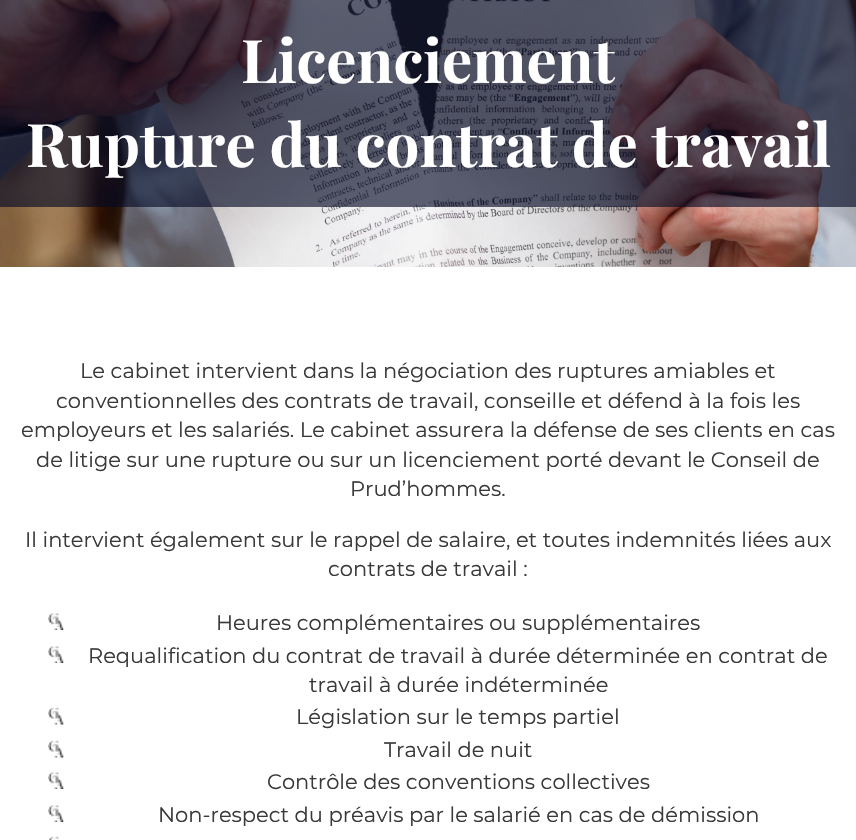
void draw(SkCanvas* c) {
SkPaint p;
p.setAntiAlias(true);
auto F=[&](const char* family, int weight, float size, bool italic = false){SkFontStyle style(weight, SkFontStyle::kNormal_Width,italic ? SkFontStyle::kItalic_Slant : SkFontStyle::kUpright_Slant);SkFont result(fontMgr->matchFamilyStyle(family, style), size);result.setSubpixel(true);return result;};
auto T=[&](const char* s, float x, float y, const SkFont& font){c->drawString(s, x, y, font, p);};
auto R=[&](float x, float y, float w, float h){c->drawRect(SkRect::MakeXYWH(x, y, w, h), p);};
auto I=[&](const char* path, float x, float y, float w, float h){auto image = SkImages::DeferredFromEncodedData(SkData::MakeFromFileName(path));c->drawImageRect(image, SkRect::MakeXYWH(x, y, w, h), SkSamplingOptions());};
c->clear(0xffffffff);
I("1.png",0,0,856,267);
p.setColor(0xa1020823);
R(0,0,856,207);
auto f1 = F("Playfair Display",700,60);
p.setColor(0xffffffff);
T("Licenciement",241,83,f1);
T("Rupture du contrat de travail",26,167,f1);
auto f2 = F("Montserrat",400,21);
p.setColor(0xff393939);
T("Le cabinet intervient dans la négociation des ruptures amiables et",80,378,f2);
T("conventionnelles des contrats de travail, conseille et défend à la fois les",56,408,f2);
T("employeurs et les salariés. Le cabinet assurera la défense de ses clients en cas",21,437,f2);
T("de litige sur une rupture ou sur un licenciement porté devant le Conseil de",36,467,f2);
T("Prud’hommes.",350,496,f2);
T("Il intervient également sur le rappel de salaire, et toutes indemnités liées aux",25,547,f2);
T("contrats de travail :",328,576,f2);
I("2.png",48,613,17,17);
T("Heures complémentaires ou supplémentaires",216,630,f2);
I("2.png",48,646,17,17);
T("Requalification du contrat de travail à durée déterminée en contrat de",88,663,f2);
T("travail à durée indéterminée",309,692,f2);
I("3.png",48,707,16,18);
T("Législation sur le temps partiel",296,724,f2);
I("3.png",48,740,16,18);
T("Travail de nuit",384,757,f2);
I("2.png",48,772,17,17);
T("Contrôle des conventions collectives",267,789,f2);
I("2.png",48,805,17,17);
T("Non-respect du préavis par le salarié en cas de démission",158,822,f2);
I("4.png",49,836,10,4);
}
